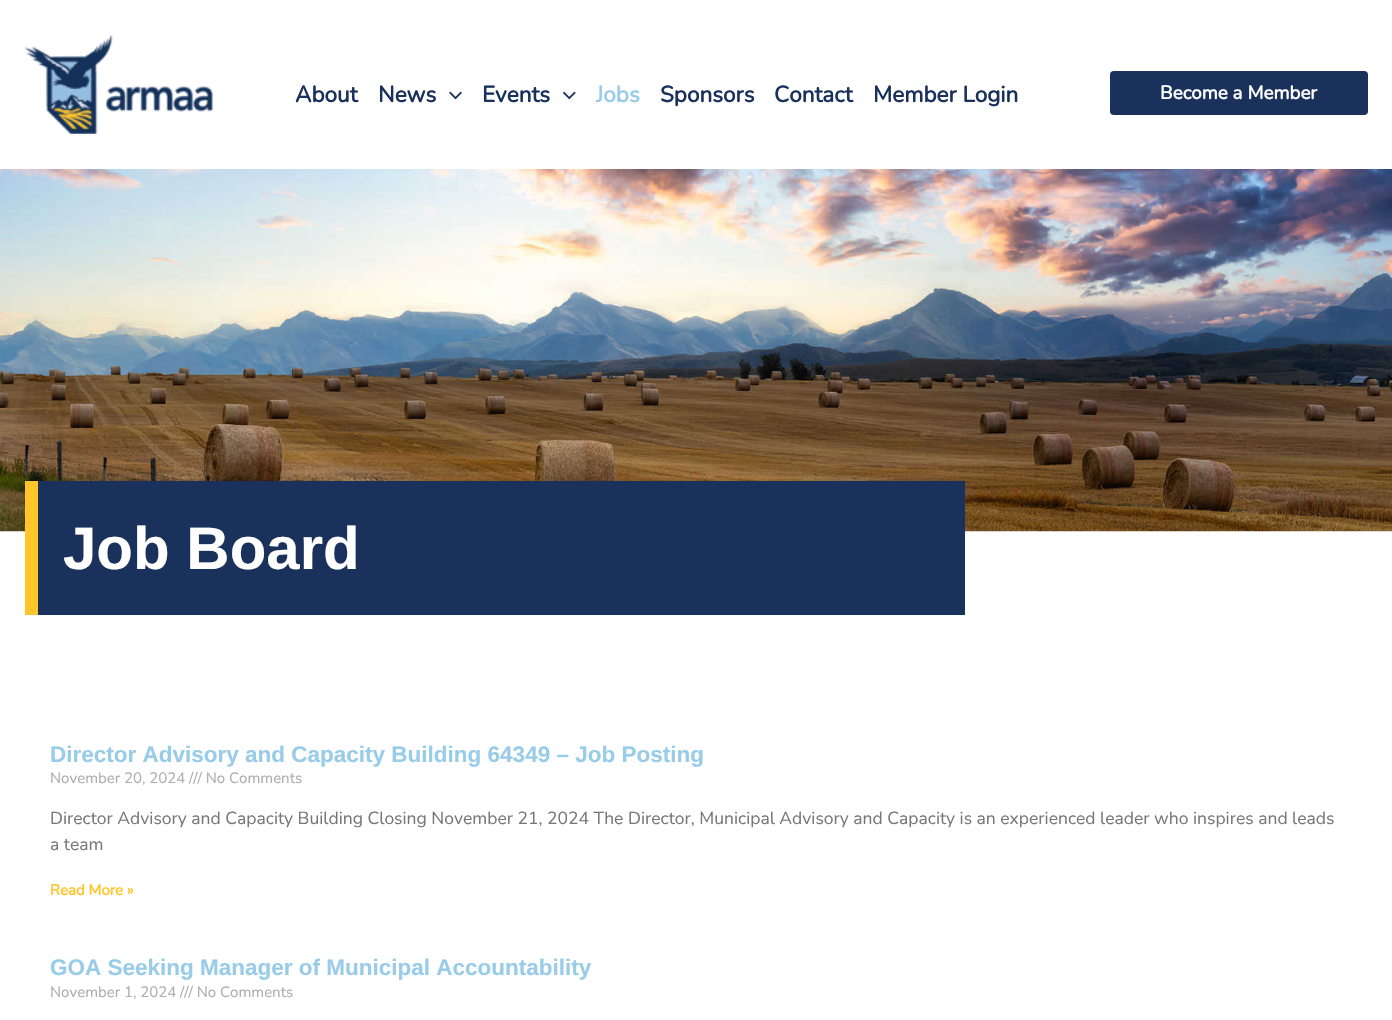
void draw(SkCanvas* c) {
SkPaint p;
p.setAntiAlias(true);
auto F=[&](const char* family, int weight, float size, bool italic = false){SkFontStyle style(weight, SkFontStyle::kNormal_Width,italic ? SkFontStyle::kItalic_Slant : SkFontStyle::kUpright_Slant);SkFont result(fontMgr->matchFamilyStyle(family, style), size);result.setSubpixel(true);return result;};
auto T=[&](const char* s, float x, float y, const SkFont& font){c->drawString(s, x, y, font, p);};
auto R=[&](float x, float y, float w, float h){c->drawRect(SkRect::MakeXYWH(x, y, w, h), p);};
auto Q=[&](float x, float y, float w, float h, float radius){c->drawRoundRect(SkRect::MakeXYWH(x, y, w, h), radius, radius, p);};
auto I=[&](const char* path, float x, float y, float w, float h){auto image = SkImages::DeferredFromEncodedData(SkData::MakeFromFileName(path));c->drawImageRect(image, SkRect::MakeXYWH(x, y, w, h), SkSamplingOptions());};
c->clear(0xffffffff);
I("1.png",25,35,188,99);
auto f1 = F("Nunito",700,22.5);
p.setColor(0xff19315b);
T("About",295,102,f1);
T("News",378,102,f1);
I("2.png",449,91,13,9);
T("Events",482,102,f1);
I("3.png",563,91,13,9);
p.setColor(0xff98cce9);
T("Jobs",596,102,f1);
p.setColor(0xff19315b);
T("Sponsors",660,102,f1);
T("Contact",774,102,f1);
T("Member Login",873,102,f1);
Q(1110,71,258,44,4);
auto f2 = F("Nunito",700,18.75);
p.setColor(0xffffffff);
T("Become a Member",1160,99,f2);
I("4.png",0,169,1392,363);
p.setColor(0xff19315b);
R(38,481,927,134);
p.setColor(0xffffc62c);
R(25,481,13,134);
auto f3 = F("Liberation Sans",700,60);
p.setColor(0xffffffff);
T("Job Board",63,569,f3);
auto f4 = F("Liberation Sans",700,22.5);
p.setColor(0xff98cce9);
T("Director Advisory and Capacity Building 64349 – Job Posting",50,762,f4);
auto f5 = F("Nunito",200,15);
p.setColor(0xffadadad);
T("November 20, 2024 /// No Comments",50,783,f5);
auto f6 = F("Nunito",200,17.5);
p.setColor(0xff777777);
T("Director Advisory and Capacity Building Closing November 21, 2024 The Director, Municipal Advisory and Capacity is an experienced leader who inspires and leads",50,824,f6);
T("a team",50,850,f6);
auto f7 = F("Nunito",700,15);
p.setColor(0xffffc62c);
T("Read More »",50,895,f7);
p.setColor(0xff98cce9);
T("GOA Seeking Manager of Municipal Accountability",50,975,f4);
p.setColor(0xffadadad);
T("November 1, 2024 /// No Comments",50,997,f5);
}
